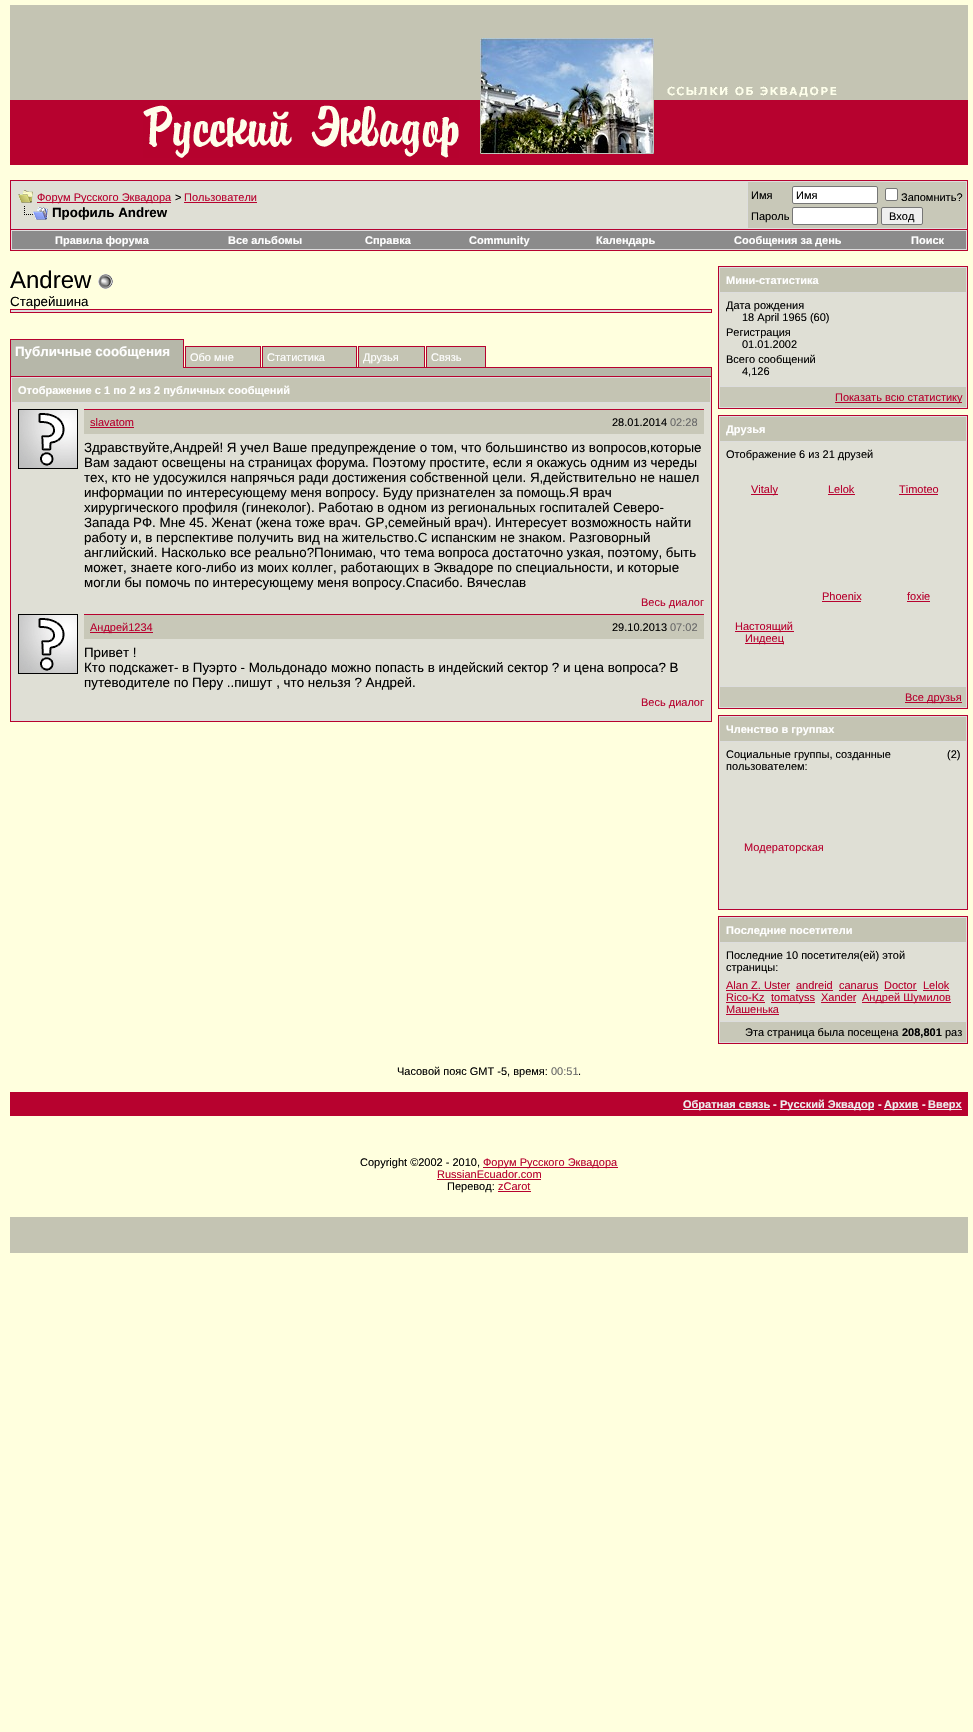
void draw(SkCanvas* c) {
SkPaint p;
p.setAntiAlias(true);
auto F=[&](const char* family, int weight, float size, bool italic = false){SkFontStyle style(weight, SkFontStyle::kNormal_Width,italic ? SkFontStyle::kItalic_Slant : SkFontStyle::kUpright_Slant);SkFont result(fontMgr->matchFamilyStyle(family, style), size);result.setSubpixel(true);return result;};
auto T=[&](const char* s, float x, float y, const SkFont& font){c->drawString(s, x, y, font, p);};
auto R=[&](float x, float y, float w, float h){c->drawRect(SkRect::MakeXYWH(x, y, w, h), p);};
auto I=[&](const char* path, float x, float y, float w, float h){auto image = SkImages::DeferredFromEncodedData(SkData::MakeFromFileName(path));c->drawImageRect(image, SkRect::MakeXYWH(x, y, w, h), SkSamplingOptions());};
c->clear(0xffffffde);
p.setColor(0xffc4c4b3);
R(10,5,958,95);
I("1.png",480,38,174,116);
I("2.png",667,86,170,11);
p.setColor(0xffb7022f);
R(10,100,470,65);
I("3.png",143,105,316,53);
R(654,100,215,54);
R(480,154,389,11);
R(869,100,99,65);
p.setColor(0xffdddddd);
c->drawRect(SkRect::MakeXYWH(10.5,180.5,957,49),p);
p.setStroke(true);
p.setStrokeWidth(1);
p.setColor(0xffb7022f);
c->drawRect(SkRect::MakeXYWH(10.5,180.5,957,49),p);
p.setStroke(false);
p.setColor(0xffdfdfd5);
R(12,182,735,46);
I("4.png",18,190,15,13);
p.setColor(0xffb7022f);
R(37,202,134,1);
auto f1 = F("Liberation Sans",400,11);
T("Форум Русского Эквадора",37,201,f1);
p.setColor(0xff000000);
T(">",175,201,f1);
p.setColor(0xffb7022f);
T("Пользователи",184,201,f1);
R(184,202,73,1);
I("5.png",24,206,24,14);
auto f2 = F("Liberation Sans",700,13.35);
p.setColor(0xff000000);
T("Профиль Andrew",52,217,f2);
p.setColor(0xffc8c8b8);
R(748,182,218,46);
p.setColor(0xff000000);
T("Имя",751,199,f1);
p.setColor(0xffffffff);
c->drawRoundRect(SkRect::MakeXYWH(792.5,186.5,85,17),1.5,1.5,p);
p.setStroke(true);
p.setColor(0xff767676);
c->drawRoundRect(SkRect::MakeXYWH(792.5,186.5,85,17),1.5,1.5,p);
p.setStroke(false);
p.setColor(0xff000000);
T("Имя",796,199,f1);
p.setColor(0xffffffff);
c->drawRoundRect(SkRect::MakeXYWH(885.5,188.5,12,12),1.5,1.5,p);
p.setStroke(true);
p.setColor(0xff767676);
c->drawRoundRect(SkRect::MakeXYWH(885.5,188.5,12,12),1.5,1.5,p);
p.setStroke(false);
p.setColor(0xff000000);
T("Запомнить?",901,201,f1);
T("Пароль",751,220,f1);
p.setColor(0xffffffff);
c->drawRoundRect(SkRect::MakeXYWH(792.5,207.5,85,17),1.5,1.5,p);
p.setStroke(true);
p.setColor(0xff767676);
c->drawRoundRect(SkRect::MakeXYWH(792.5,207.5,85,17),1.5,1.5,p);
p.setStroke(false);
p.setColor(0xffefefef);
c->drawRoundRect(SkRect::MakeXYWH(881.5,207.5,41,17),1.5,1.5,p);
p.setStroke(true);
p.setColor(0xff767676);
c->drawRoundRect(SkRect::MakeXYWH(881.5,207.5,41,17),1.5,1.5,p);
p.setStroke(false);
p.setColor(0xff000000);
T("Вход",889,220,f1);
p.setColor(0xffdddddd);
R(11,230,956,20);
p.setColor(0xffb7022f);
R(967,230,1,21);
R(10,250,958,1);
R(10,230,1,21);
p.setColor(0xff8b8b8b);
R(12,231,954,18);
auto f3 = F("Liberation Sans",700,11);
p.setColor(0xffffffff);
T("Правила форума",55,244,f3);
T("Все альбомы",228,244,f3);
T("Справка",365,244,f3);
T("Community",469,244,f3);
T("Календарь",596,244,f3);
T("Сообщения за день",734,244,f3);
T("Поиск",911,244,f3);
auto f4 = F("Liberation Sans",400,24);
p.setColor(0xff000000);
T("Andrew",10,288,f4);
I("6.png",98,274,15,15);
auto f5 = F("Liberation Sans",400,13.35);
T("Старейшина",10,306,f5);
p.setColor(0xffdddddd);
c->drawRect(SkRect::MakeXYWH(10.5,309.5,701,3),p);
p.setStroke(true);
p.setColor(0xffb7022f);
c->drawRect(SkRect::MakeXYWH(10.5,309.5,701,3),p);
p.setStroke(false);
p.setColor(0xffb6b7a9);
R(11,340,172,28);
p.setColor(0xffb7022f);
R(10,339,174,1);
R(183,339,1,29);
R(10,367,1,9);
R(10,339,1,29);
p.setColor(0xffffffff);
T("Публичные сообщения",15,356,f2);
p.setColor(0xffb7022f);
R(184,367,528,1);
p.setColor(0xffc4c4b3);
c->drawRect(SkRect::MakeXYWH(185.5,346.5,75,21),p);
p.setStroke(true);
p.setColor(0xffb7022f);
c->drawRect(SkRect::MakeXYWH(185.5,346.5,75,21),p);
p.setStroke(false);
p.setColor(0xffffffff);
T("Обо мне",190,361,f1);
p.setColor(0xffc4c4b3);
c->drawRect(SkRect::MakeXYWH(262.5,346.5,94,21),p);
p.setStroke(true);
p.setColor(0xffb7022f);
c->drawRect(SkRect::MakeXYWH(262.5,346.5,94,21),p);
p.setStroke(false);
p.setColor(0xffffffff);
T("Статистика",267,361,f1);
p.setColor(0xffc4c4b3);
c->drawRect(SkRect::MakeXYWH(358.5,346.5,66,21),p);
p.setStroke(true);
p.setColor(0xffb7022f);
c->drawRect(SkRect::MakeXYWH(358.5,346.5,66,21),p);
p.setStroke(false);
p.setColor(0xffffffff);
T("Друзья",363,361,f1);
p.setColor(0xffc4c4b3);
c->drawRect(SkRect::MakeXYWH(426.5,346.5,59,21),p);
p.setStroke(true);
p.setColor(0xffb7022f);
c->drawRect(SkRect::MakeXYWH(426.5,346.5,59,21),p);
p.setStroke(false);
p.setColor(0xffffffff);
T("Связь",431,361,f1);
p.setColor(0xffb6b7a9);
R(11,368,700,8);
p.setColor(0xffb7022f);
R(711,367,1,9);
p.setColor(0xffdddddd);
c->drawRect(SkRect::MakeXYWH(10.5,376.5,701,345),p);
p.setStroke(true);
p.setColor(0xffb7022f);
c->drawRect(SkRect::MakeXYWH(10.5,376.5,701,345),p);
p.setStroke(false);
p.setColor(0xffc4c4b3);
R(12,378,698,24);
p.setColor(0xffffffff);
T("Отображение с 1 по 2 из 2 публичных сообщений",18,394,f3);
p.setColor(0xffdfdfd5);
R(12,403,698,317);
I("7.png",18,409,60,60);
p.setColor(0xffb7022f);
R(84,409,620,1);
p.setColor(0xffc8c8b8);
R(84,410,620,24);
p.setColor(0xffb7022f);
T("slavatom",90,426,f1);
R(90,427,44,1);
p.setColor(0xff000000);
T("28.01.2014",612,426,f1);
p.setColor(0xff696969);
T("02:28",670,426,f1);
p.setColor(0xff000000);
T("Здравствуйте,Андрей! Я учел Ваше предупреждение о том, что большинство из вопросов,которые",84,452,f5);
T("Вам задают освещены на страницах форума. Поэтому простите, если я окажусь одним из череды",84,467,f5);
T("тех, кто не удосужился напрячься ради достижения собственной цели. Я,действительно не нашел",84,482,f5);
T("информации по интересующему меня вопросу. Буду признателен за помощь.Я врач",84,497,f5);
T("хирургического профиля (гинеколог). Работаю в одном из региональных госпиталей Северо-",84,512,f5);
T("Запада РФ. Мне 45. Женат (жена тоже врач. GP,семейный врач). Интересует возможность найти",84,527,f5);
T("работу и, в перспективе получить вид на жительство.С испанским не знаком. Разговорный",84,542,f5);
T("английский. Насколько все реально?Понимаю, что тема вопроса достаточно узкая, поэтому, быть",84,557,f5);
T("может, знаете кого-либо из моих коллег, работающих в Эквадоре по специальности, и которые",84,572,f5);
T("могли бы помочь по интересующему меня вопросу.Спасибо. Вячеслав",84,587,f5);
p.setColor(0xffb7022f);
T("Весь диалог",641,606,f1);
I("7.png",18,614,60,60);
R(84,614,620,1);
p.setColor(0xffc8c8b8);
R(84,615,620,24);
p.setColor(0xffb7022f);
R(90,632,63,1);
T("Андрей1234",90,631,f1);
p.setColor(0xff000000);
T("29.10.2013",612,631,f1);
p.setColor(0xff696969);
T("07:02",670,631,f1);
p.setColor(0xff000000);
T("Привет !",84,657,f5);
T("Кто подскажет- в Пуэрто - Мольдонадо можно попасть в индейский сектор ? и цена вопроса? В",84,672,f5);
T("путеводителе по Перу ..пишут , что нельзя ? Андрей.",84,687,f5);
p.setColor(0xffb7022f);
T("Весь диалог",641,706,f1);
p.setColor(0xffdddddd);
c->drawRect(SkRect::MakeXYWH(718.5,266.5,249,142),p);
p.setStroke(true);
p.setColor(0xffb7022f);
c->drawRect(SkRect::MakeXYWH(718.5,266.5,249,142),p);
p.setStroke(false);
p.setColor(0xffc4c4b3);
R(720,268,246,24);
p.setColor(0xffffffff);
T("Мини-статистика",726,284,f3);
p.setColor(0xffdfdfd5);
R(720,293,246,93);
p.setColor(0xff000000);
T("Дата рождения",726,309,f1);
T("18 April 1965 (60)",742,321,f1);
T("Регистрация",726,336,f1);
T("01.01.2002",742,348,f1);
T("Всего сообщений",726,363,f1);
T("4,126",742,375,f1);
p.setColor(0xffc8c8b8);
R(720,387,246,20);
p.setColor(0xffb7022f);
R(835,402,127,1);
T("Показать всю статистику",835,401,f1);
p.setColor(0xffdddddd);
c->drawRect(SkRect::MakeXYWH(718.5,415.5,249,293),p);
p.setStroke(true);
p.setColor(0xffb7022f);
c->drawRect(SkRect::MakeXYWH(718.5,415.5,249,293),p);
p.setStroke(false);
p.setColor(0xffc4c4b3);
R(720,417,246,24);
p.setColor(0xffffffff);
T("Друзья",726,433,f3);
p.setColor(0xffdfdfd5);
R(720,442,246,244);
p.setColor(0xff000000);
T("Отображение 6 из 21 друзей",726,458,f1);
p.setColor(0xffb7022f);
R(751,494,27,1);
T("Vitaly",751,493,f1);
T("Lelok",828,493,f1);
R(828,494,27,1);
T("Timoteo",899,493,f1);
R(899,494,39,1);
T("Phoenix",822,600,f1);
R(822,601,39,1);
T("foxie",907,600,f1);
R(907,601,23,1);
R(735,631,59,1);
T("Настоящий",735,630,f1);
R(745,643,39,1);
T("Индеец",745,642,f1);
p.setColor(0xffc8c8b8);
R(720,687,246,20);
p.setColor(0xffb7022f);
R(905,702,57,1);
T("Все друзья",905,701,f1);
p.setColor(0xffdddddd);
c->drawRect(SkRect::MakeXYWH(718.5,715.5,249,194),p);
p.setStroke(true);
p.setColor(0xffb7022f);
c->drawRect(SkRect::MakeXYWH(718.5,715.5,249,194),p);
p.setStroke(false);
p.setColor(0xffc4c4b3);
R(720,717,246,24);
p.setColor(0xffffffff);
T("Членство в группах",726,733,f3);
p.setColor(0xffdfdfd5);
R(720,742,246,166);
p.setColor(0xff000000);
T("Социальные группы, созданные",726,758,f1);
T("(2)",947,758,f1);
T("пользователем:",726,770,f1);
p.setColor(0xffb7022f);
T("Модераторская",744,851,f1);
p.setColor(0xffdddddd);
c->drawRect(SkRect::MakeXYWH(718.5,916.5,249,127),p);
p.setStroke(true);
p.setColor(0xffb7022f);
c->drawRect(SkRect::MakeXYWH(718.5,916.5,249,127),p);
p.setStroke(false);
p.setColor(0xffc4c4b3);
R(720,918,246,24);
p.setColor(0xffffffff);
T("Последние посетители",726,934,f3);
p.setColor(0xffdfdfd5);
R(720,943,246,78);
p.setColor(0xff000000);
T("Последние 10 посетителя(ей) этой",726,959,f1);
T("страницы:",726,971,f1);
p.setColor(0xffb7022f);
T("Alan Z. Uster",726,989,f1);
R(726,990,64,1);
T("andreid",796,989,f1);
R(796,990,37,1);
T("canarus",839,989,f1);
R(839,990,39,1);
T("Doctor",884,989,f1);
R(884,990,33,1);
T("Lelok",923,989,f1);
R(923,990,26,1);
T("Rico-Kz",726,1001,f1);
R(726,1002,39,1);
R(771,1002,44,1);
T("tomatyss",771,1001,f1);
T("Xander",821,1001,f1);
R(821,1002,35,1);
R(862,1002,89,1);
T("Андрей Шумилов",862,1001,f1);
T("Машенька",726,1013,f1);
R(726,1014,53,1);
p.setColor(0xffc8c8b8);
R(720,1022,246,20);
p.setColor(0xff000000);
T("Эта страница была посещена",745,1036,f1);
T("208,801",902,1036,f3);
T("раз",945,1036,f1);
T("Часовой пояс GMT -5, время:",397,1075,f1);
p.setColor(0xff696969);
T("00:51",551,1075,f1);
p.setColor(0xff000000);
T(".",578,1075,f1);
p.setColor(0xffb7022f);
R(10,1092,958,24);
p.setColor(0xffeeeeee);
R(683,1109,87,1);
T("Обратная связь",683,1108,f3);
p.setColor(0xffffffff);
T("-",773,1108,f3);
p.setColor(0xffeeeeee);
R(780,1109,94,1);
T("Русский Эквадор",780,1108,f3);
p.setColor(0xffffffff);
T("-",878,1108,f3);
p.setColor(0xffeeeeee);
R(884,1109,35,1);
T("Архив",884,1108,f3);
p.setColor(0xffffffff);
T("-",922,1108,f3);
p.setColor(0xffeeeeee);
R(928,1109,34,1);
T("Вверх",928,1108,f3);
p.setColor(0xff000000);
T("Copyright ©2002 - 2010,",360,1166,f1);
p.setColor(0xffb7022f);
R(483,1167,135,1);
T("Форум Русского Эквадора",483,1166,f1);
T("RussianEcuador.com",437,1178,f1);
R(437,1179,104,1);
p.setColor(0xff000000);
T("Перевод:",447,1190,f1);
p.setColor(0xffb7022f);
T("zCarot",498,1190,f1);
R(498,1191,33,1);
p.setColor(0xffc4c4b3);
R(10,1217,958,36);
}
